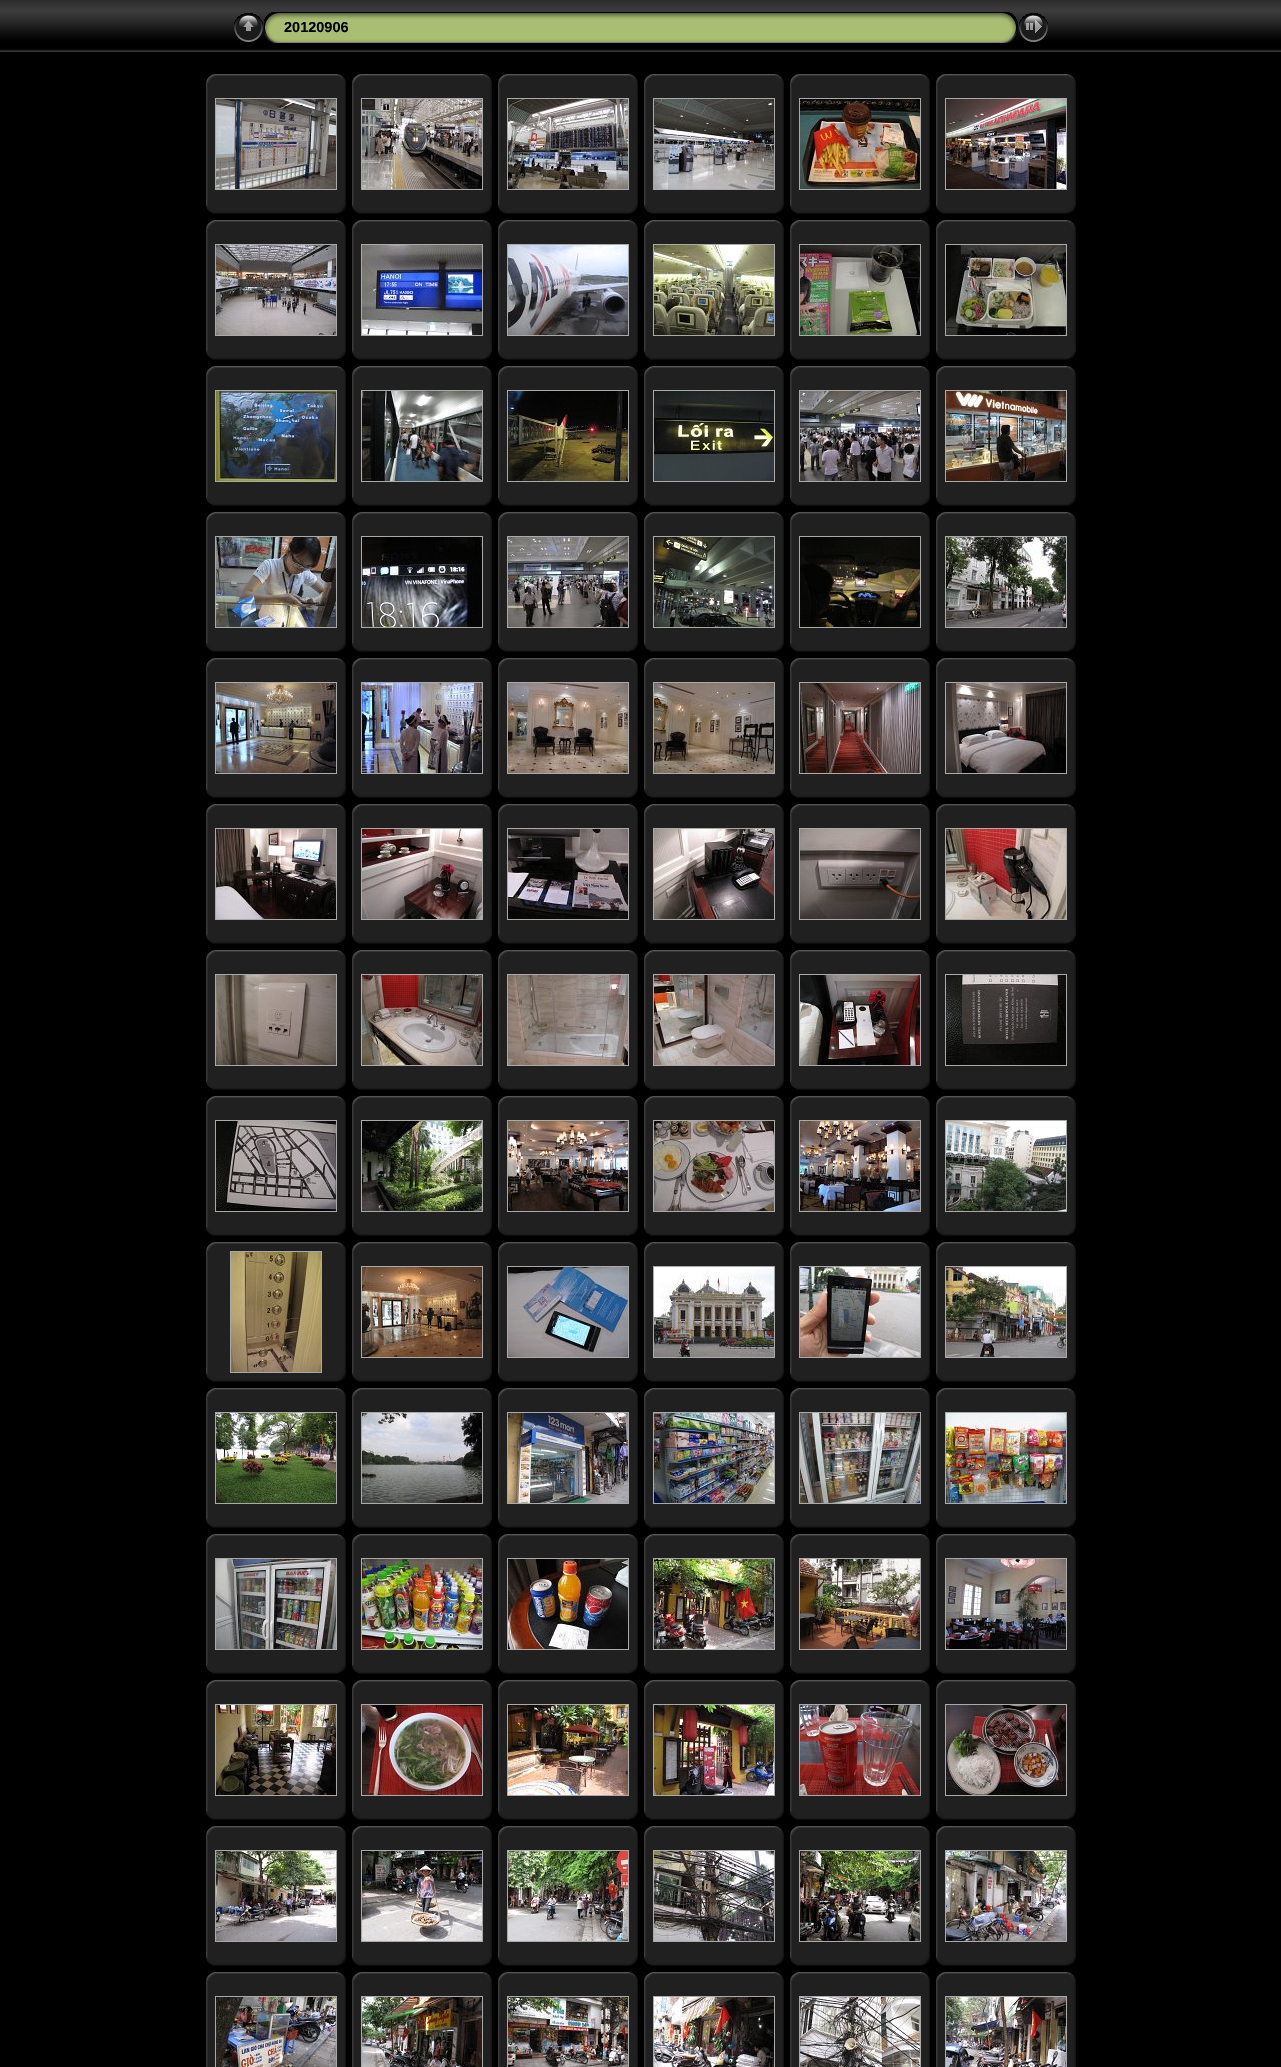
void draw(SkCanvas* c) {
SkPaint p;
p.setAntiAlias(true);
auto F=[&](const char* family, int weight, float size, bool italic = false){SkFontStyle style(weight, SkFontStyle::kNormal_Width,italic ? SkFontStyle::kItalic_Slant : SkFontStyle::kUpright_Slant);SkFont result(fontMgr->matchFamilyStyle(family, style), size);result.setSubpixel(true);return result;};
auto T=[&](const char* s, float x, float y, const SkFont& font){c->drawString(s, x, y, font, p);};
auto I=[&](const char* path, float x, float y, float w, float h){auto image = SkImages::DeferredFromEncodedData(SkData::MakeFromFileName(path));c->drawImageRect(image, SkRect::MakeXYWH(x, y, w, h), SkSamplingOptions());};
c->clear(0xff000000);
I("1.png",0,0,1281,52);
I("2.png",234,13,29,29);
I("3.png",264,12,20,31);
I("4.png",284,12,714,31);
auto f1 = F("Liberation Sans",700,14.5);
p.setColor(0xff000000);
T("20120906",284,32,f1);
I("5.png",998,12,20,31);
I("6.png",1019,13,29,29);
I("7.png",206,74,140,140);
p.setStroke(true);
p.setStrokeWidth(1);
p.setColor(0xffaaaaaa);
c->drawRect(SkRect::MakeXYWH(215.5,98.5,121,91),p);
I("8.png",216,99,120,90);
I("7.png",352,74,140,140);
c->drawRect(SkRect::MakeXYWH(361.5,98.5,121,91),p);
I("9.png",362,99,120,90);
I("7.png",498,74,140,140);
c->drawRect(SkRect::MakeXYWH(507.5,98.5,121,91),p);
I("10.png",508,99,120,90);
I("7.png",644,74,140,140);
c->drawRect(SkRect::MakeXYWH(653.5,98.5,121,91),p);
I("11.png",654,99,120,90);
I("7.png",790,74,140,140);
c->drawRect(SkRect::MakeXYWH(799.5,98.5,121,91),p);
I("12.png",800,99,120,90);
I("7.png",936,74,140,140);
c->drawRect(SkRect::MakeXYWH(945.5,98.5,121,91),p);
I("13.png",946,99,120,90);
I("7.png",206,220,140,140);
c->drawRect(SkRect::MakeXYWH(215.5,244.5,121,91),p);
I("14.png",216,245,120,90);
I("7.png",352,220,140,140);
c->drawRect(SkRect::MakeXYWH(361.5,244.5,121,91),p);
I("15.png",362,245,120,90);
I("7.png",498,220,140,140);
c->drawRect(SkRect::MakeXYWH(507.5,244.5,121,91),p);
I("16.png",508,245,120,90);
I("7.png",644,220,140,140);
c->drawRect(SkRect::MakeXYWH(653.5,244.5,121,91),p);
I("17.png",654,245,120,90);
I("7.png",790,220,140,140);
c->drawRect(SkRect::MakeXYWH(799.5,244.5,121,91),p);
I("18.png",800,245,120,90);
I("7.png",936,220,140,140);
c->drawRect(SkRect::MakeXYWH(945.5,244.5,121,91),p);
I("19.png",946,245,120,90);
I("7.png",206,366,140,140);
c->drawRect(SkRect::MakeXYWH(215.5,390.5,121,91),p);
I("20.png",216,391,120,90);
I("7.png",352,366,140,140);
c->drawRect(SkRect::MakeXYWH(361.5,390.5,121,91),p);
I("21.png",362,391,120,90);
I("7.png",498,366,140,140);
c->drawRect(SkRect::MakeXYWH(507.5,390.5,121,91),p);
I("22.png",508,391,120,90);
I("7.png",644,366,140,140);
c->drawRect(SkRect::MakeXYWH(653.5,390.5,121,91),p);
I("23.png",654,391,120,90);
I("7.png",790,366,140,140);
c->drawRect(SkRect::MakeXYWH(799.5,390.5,121,91),p);
I("24.png",800,391,120,90);
I("7.png",936,366,140,140);
c->drawRect(SkRect::MakeXYWH(945.5,390.5,121,91),p);
I("25.png",946,391,120,90);
I("7.png",206,512,140,140);
c->drawRect(SkRect::MakeXYWH(215.5,536.5,121,91),p);
I("26.png",216,537,120,90);
I("7.png",352,512,140,140);
c->drawRect(SkRect::MakeXYWH(361.5,536.5,121,91),p);
I("27.png",362,537,120,90);
I("7.png",498,512,140,140);
c->drawRect(SkRect::MakeXYWH(507.5,536.5,121,91),p);
I("28.png",508,537,120,90);
I("7.png",644,512,140,140);
c->drawRect(SkRect::MakeXYWH(653.5,536.5,121,91),p);
I("29.png",654,537,120,90);
I("7.png",790,512,140,140);
c->drawRect(SkRect::MakeXYWH(799.5,536.5,121,91),p);
I("30.png",800,537,120,90);
I("7.png",936,512,140,140);
c->drawRect(SkRect::MakeXYWH(945.5,536.5,121,91),p);
I("31.png",946,537,120,90);
I("7.png",206,658,140,140);
c->drawRect(SkRect::MakeXYWH(215.5,682.5,121,91),p);
I("32.png",216,683,120,90);
I("7.png",352,658,140,140);
c->drawRect(SkRect::MakeXYWH(361.5,682.5,121,91),p);
I("33.png",362,683,120,90);
I("7.png",498,658,140,140);
c->drawRect(SkRect::MakeXYWH(507.5,682.5,121,91),p);
I("34.png",508,683,120,90);
I("7.png",644,658,140,140);
c->drawRect(SkRect::MakeXYWH(653.5,682.5,121,91),p);
I("35.png",654,683,120,90);
I("7.png",790,658,140,140);
c->drawRect(SkRect::MakeXYWH(799.5,682.5,121,91),p);
I("36.png",800,683,120,90);
I("7.png",936,658,140,140);
c->drawRect(SkRect::MakeXYWH(945.5,682.5,121,91),p);
I("37.png",946,683,120,90);
I("7.png",206,804,140,140);
c->drawRect(SkRect::MakeXYWH(215.5,828.5,121,91),p);
I("38.png",216,829,120,90);
I("7.png",352,804,140,140);
c->drawRect(SkRect::MakeXYWH(361.5,828.5,121,91),p);
I("39.png",362,829,120,90);
I("7.png",498,804,140,140);
c->drawRect(SkRect::MakeXYWH(507.5,828.5,121,91),p);
I("40.png",508,829,120,90);
I("7.png",644,804,140,140);
c->drawRect(SkRect::MakeXYWH(653.5,828.5,121,91),p);
I("41.png",654,829,120,90);
I("7.png",790,804,140,140);
c->drawRect(SkRect::MakeXYWH(799.5,828.5,121,91),p);
I("42.png",800,829,120,90);
I("7.png",936,804,140,140);
c->drawRect(SkRect::MakeXYWH(945.5,828.5,121,91),p);
I("43.png",946,829,120,90);
I("7.png",206,950,140,140);
c->drawRect(SkRect::MakeXYWH(215.5,974.5,121,91),p);
I("44.png",216,975,120,90);
I("7.png",352,950,140,140);
c->drawRect(SkRect::MakeXYWH(361.5,974.5,121,91),p);
I("45.png",362,975,120,90);
I("7.png",498,950,140,140);
c->drawRect(SkRect::MakeXYWH(507.5,974.5,121,91),p);
I("46.png",508,975,120,90);
I("7.png",644,950,140,140);
c->drawRect(SkRect::MakeXYWH(653.5,974.5,121,91),p);
I("47.png",654,975,120,90);
I("7.png",790,950,140,140);
c->drawRect(SkRect::MakeXYWH(799.5,974.5,121,91),p);
I("48.png",800,975,120,90);
I("7.png",936,950,140,140);
c->drawRect(SkRect::MakeXYWH(945.5,974.5,121,91),p);
I("49.png",946,975,120,90);
I("7.png",206,1096,140,140);
c->drawRect(SkRect::MakeXYWH(215.5,1120.5,121,91),p);
I("50.png",216,1121,120,90);
I("7.png",352,1096,140,140);
c->drawRect(SkRect::MakeXYWH(361.5,1120.5,121,91),p);
I("51.png",362,1121,120,90);
I("7.png",498,1096,140,140);
c->drawRect(SkRect::MakeXYWH(507.5,1120.5,121,91),p);
I("52.png",508,1121,120,90);
I("7.png",644,1096,140,140);
c->drawRect(SkRect::MakeXYWH(653.5,1120.5,121,91),p);
I("53.png",654,1121,120,90);
I("7.png",790,1096,140,140);
c->drawRect(SkRect::MakeXYWH(799.5,1120.5,121,91),p);
I("54.png",800,1121,120,90);
I("7.png",936,1096,140,140);
c->drawRect(SkRect::MakeXYWH(945.5,1120.5,121,91),p);
I("55.png",946,1121,120,90);
I("7.png",206,1242,140,140);
c->drawRect(SkRect::MakeXYWH(230.5,1251.5,91,121),p);
I("56.png",231,1252,90,120);
I("7.png",352,1242,140,140);
c->drawRect(SkRect::MakeXYWH(361.5,1266.5,121,91),p);
I("57.png",362,1267,120,90);
I("7.png",498,1242,140,140);
c->drawRect(SkRect::MakeXYWH(507.5,1266.5,121,91),p);
I("58.png",508,1267,120,90);
I("7.png",644,1242,140,140);
c->drawRect(SkRect::MakeXYWH(653.5,1266.5,121,91),p);
I("59.png",654,1267,120,90);
I("7.png",790,1242,140,140);
c->drawRect(SkRect::MakeXYWH(799.5,1266.5,121,91),p);
I("60.png",800,1267,120,90);
I("7.png",936,1242,140,140);
c->drawRect(SkRect::MakeXYWH(945.5,1266.5,121,91),p);
I("61.png",946,1267,120,90);
I("7.png",206,1388,140,140);
c->drawRect(SkRect::MakeXYWH(215.5,1412.5,121,91),p);
I("62.png",216,1413,120,90);
I("7.png",352,1388,140,140);
c->drawRect(SkRect::MakeXYWH(361.5,1412.5,121,91),p);
I("63.png",362,1413,120,90);
I("7.png",498,1388,140,140);
c->drawRect(SkRect::MakeXYWH(507.5,1412.5,121,91),p);
I("64.png",508,1413,120,90);
I("7.png",644,1388,140,140);
c->drawRect(SkRect::MakeXYWH(653.5,1412.5,121,91),p);
I("65.png",654,1413,120,90);
I("7.png",790,1388,140,140);
c->drawRect(SkRect::MakeXYWH(799.5,1412.5,121,91),p);
I("66.png",800,1413,120,90);
I("7.png",936,1388,140,140);
c->drawRect(SkRect::MakeXYWH(945.5,1412.5,121,91),p);
I("67.png",946,1413,120,90);
I("7.png",206,1534,140,140);
c->drawRect(SkRect::MakeXYWH(215.5,1558.5,121,91),p);
I("68.png",216,1559,120,90);
I("7.png",352,1534,140,140);
c->drawRect(SkRect::MakeXYWH(361.5,1558.5,121,91),p);
I("69.png",362,1559,120,90);
I("7.png",498,1534,140,140);
c->drawRect(SkRect::MakeXYWH(507.5,1558.5,121,91),p);
I("70.png",508,1559,120,90);
I("7.png",644,1534,140,140);
c->drawRect(SkRect::MakeXYWH(653.5,1558.5,121,91),p);
I("71.png",654,1559,120,90);
I("7.png",790,1534,140,140);
c->drawRect(SkRect::MakeXYWH(799.5,1558.5,121,91),p);
I("72.png",800,1559,120,90);
I("7.png",936,1534,140,140);
c->drawRect(SkRect::MakeXYWH(945.5,1558.5,121,91),p);
I("73.png",946,1559,120,90);
I("7.png",206,1680,140,140);
c->drawRect(SkRect::MakeXYWH(215.5,1704.5,121,91),p);
I("74.png",216,1705,120,90);
I("7.png",352,1680,140,140);
c->drawRect(SkRect::MakeXYWH(361.5,1704.5,121,91),p);
I("75.png",362,1705,120,90);
I("7.png",498,1680,140,140);
c->drawRect(SkRect::MakeXYWH(507.5,1704.5,121,91),p);
I("76.png",508,1705,120,90);
I("7.png",644,1680,140,140);
c->drawRect(SkRect::MakeXYWH(653.5,1704.5,121,91),p);
I("77.png",654,1705,120,90);
I("7.png",790,1680,140,140);
c->drawRect(SkRect::MakeXYWH(799.5,1704.5,121,91),p);
I("78.png",800,1705,120,90);
I("7.png",936,1680,140,140);
c->drawRect(SkRect::MakeXYWH(945.5,1704.5,121,91),p);
I("79.png",946,1705,120,90);
I("7.png",206,1826,140,140);
c->drawRect(SkRect::MakeXYWH(215.5,1850.5,121,91),p);
I("80.png",216,1851,120,90);
I("7.png",352,1826,140,140);
c->drawRect(SkRect::MakeXYWH(361.5,1850.5,121,91),p);
I("81.png",362,1851,120,90);
I("7.png",498,1826,140,140);
c->drawRect(SkRect::MakeXYWH(507.5,1850.5,121,91),p);
I("82.png",508,1851,120,90);
I("7.png",644,1826,140,140);
c->drawRect(SkRect::MakeXYWH(653.5,1850.5,121,91),p);
I("83.png",654,1851,120,90);
I("7.png",790,1826,140,140);
c->drawRect(SkRect::MakeXYWH(799.5,1850.5,121,91),p);
I("84.png",800,1851,120,90);
I("7.png",936,1826,140,140);
c->drawRect(SkRect::MakeXYWH(945.5,1850.5,121,91),p);
I("85.png",946,1851,120,90);
I("86.png",206,1972,140,95);
c->drawRect(SkRect::MakeXYWH(215.5,1996.5,121,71),p);
I("87.png",216,1997,120,70);
I("86.png",352,1972,140,95);
c->drawRect(SkRect::MakeXYWH(361.5,1996.5,121,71),p);
I("88.png",362,1997,120,70);
I("86.png",498,1972,140,95);
c->drawRect(SkRect::MakeXYWH(507.5,1996.5,121,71),p);
I("89.png",508,1997,120,70);
I("86.png",644,1972,140,95);
c->drawRect(SkRect::MakeXYWH(653.5,1996.5,121,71),p);
I("90.png",654,1997,120,70);
I("86.png",790,1972,140,95);
c->drawRect(SkRect::MakeXYWH(799.5,1996.5,121,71),p);
I("91.png",800,1997,120,70);
I("86.png",936,1972,140,95);
c->drawRect(SkRect::MakeXYWH(945.5,1996.5,121,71),p);
I("92.png",946,1997,120,70);
}
